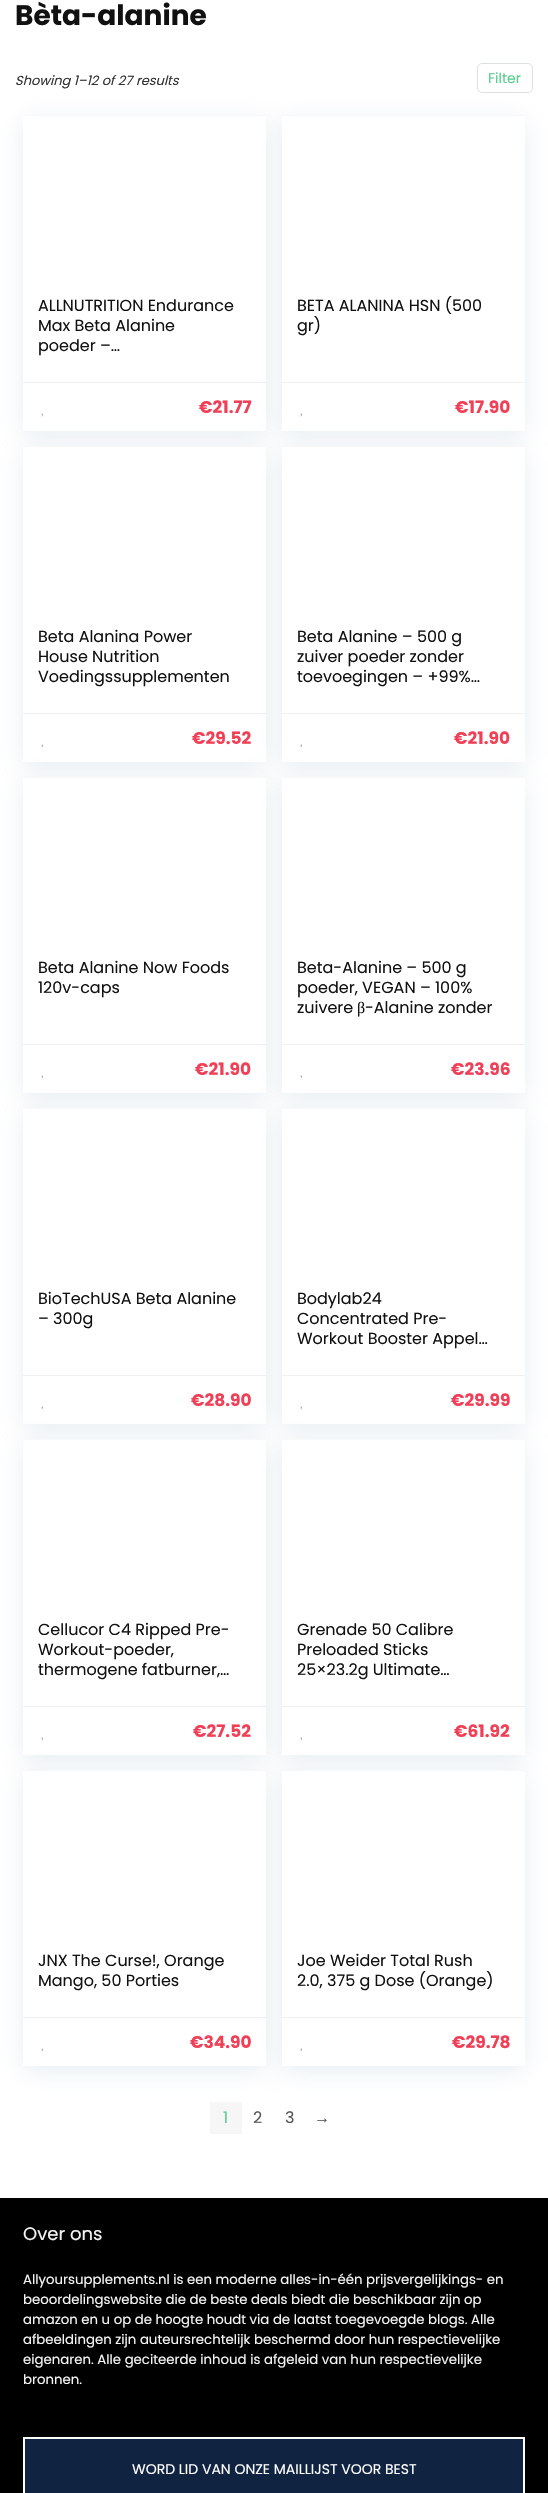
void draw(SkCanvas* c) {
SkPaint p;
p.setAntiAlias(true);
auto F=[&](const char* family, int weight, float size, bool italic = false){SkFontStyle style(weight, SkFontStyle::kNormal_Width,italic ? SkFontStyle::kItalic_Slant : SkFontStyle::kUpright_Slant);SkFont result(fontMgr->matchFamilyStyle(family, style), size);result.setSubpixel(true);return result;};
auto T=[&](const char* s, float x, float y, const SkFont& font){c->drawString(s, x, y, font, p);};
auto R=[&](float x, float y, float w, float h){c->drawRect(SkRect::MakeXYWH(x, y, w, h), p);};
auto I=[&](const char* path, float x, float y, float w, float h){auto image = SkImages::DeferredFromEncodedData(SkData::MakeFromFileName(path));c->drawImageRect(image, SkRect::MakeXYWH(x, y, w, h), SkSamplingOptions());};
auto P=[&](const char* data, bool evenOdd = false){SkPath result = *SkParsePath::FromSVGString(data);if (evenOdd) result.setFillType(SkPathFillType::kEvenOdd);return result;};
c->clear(0xffffffff);
auto f1 = F("Poppins",700,28);
p.setColor(0xff111111);
T("Bèta-alanine",15,25,f1);
auto f2 = F("Poppins",400,13,true);
p.setColor(0xff333333);
T("Showing 1–12 of 27 results",15,85,f2);
p.setStroke(true);
p.setStrokeWidth(1);
p.setColor(0xffdce0e0);
c->drawRoundRect(SkRect::MakeXYWH(477.5,63.5,55,29),4.5,4.5,p);
auto f3 = F("Poppins",400,14);
p.setStroke(false);
p.setColor(0xff59ce8f);
T("Filter",488,83,f3);
c->save();
c->clipPath(P("M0 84h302v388h-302zm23 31h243v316h-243z",true),true);
p.setColor(0x59bccfdb);
p.setMaskFilter(SkMaskFilter::MakeBlur(kNormal_SkBlurStyle, 11.5));
c->drawRect(SkRect::MakeXYWH(23,120,243,316),p);
p.setMaskFilter(nullptr);
c->restore();
p.setColor(0xfff8f8f8);
R(23,115,243,1);
auto f4 = F("Poppins",400,16);
p.setColor(0xff111111);
T("ALLNUTRITION Endurance",38,311,f4);
T("Max Beta Alanine",38,331,f4);
T("poeder –…",38,351,f4);
p.setColor(0xfff0f0f0);
R(23,382,243,1);
auto f5 = F("Poppins",700,17);
p.setColor(0xfff04057);
T("€21.77",199,413,f5);
p.setColor(0x59bccfdb);
p.setMaskFilter(SkMaskFilter::MakeBlur(kNormal_SkBlurStyle, 11.5));
c->drawRect(SkRect::MakeXYWH(282,120,243,316),p);
p.setMaskFilter(nullptr);
p.setColor(0xffffffff);
R(282,116,243,315);
p.setColor(0x59bccfdb);
p.setMaskFilter(SkMaskFilter::MakeBlur(kNormal_SkBlurStyle, 11.5));
c->drawRect(SkRect::MakeXYWH(23,451,243,316),p);
p.setMaskFilter(nullptr);
I("1.png",41,413,3,4);
p.setColor(0xfff8f8f8);
R(282,115,243,1);
p.setColor(0xff111111);
T("BETA ALANINA HSN (500",297,311,f4);
T("gr)",297,331,f4);
p.setColor(0xfff0f0f0);
R(282,382,243,1);
p.setColor(0xfff04057);
T("€17.90",455,413,f5);
p.setColor(0xffffffff);
R(23,447,243,315);
p.setColor(0xfff8f8f8);
R(23,446,243,1);
p.setColor(0xfff0f0f0);
R(23,713,243,1);
p.setColor(0x59bccfdb);
p.setMaskFilter(SkMaskFilter::MakeBlur(kNormal_SkBlurStyle, 11.5));
c->drawRect(SkRect::MakeXYWH(282,451,243,316),p);
p.setMaskFilter(nullptr);
I("1.png",300,413,3,4);
p.setColor(0xff111111);
T("Beta Alanina Power",38,642,f4);
T("House Nutrition",38,662,f4);
T("Voedingssupplementen",38,682,f4);
p.setColor(0xfff04057);
T("€29.52",192,744,f5);
p.setColor(0xffffffff);
R(282,447,243,315);
p.setColor(0x59bccfdb);
p.setMaskFilter(SkMaskFilter::MakeBlur(kNormal_SkBlurStyle, 11.5));
c->drawRect(SkRect::MakeXYWH(23,782,243,316),p);
p.setMaskFilter(nullptr);
I("1.png",41,744,3,4);
p.setColor(0xfff8f8f8);
R(282,446,243,1);
p.setColor(0xff111111);
T("Beta Alanine – 500 g",297,642,f4);
T("zuiver poeder zonder",297,662,f4);
T("toevoegingen – +99%…",297,682,f4);
p.setColor(0xfff0f0f0);
R(282,713,243,1);
p.setColor(0xfff04057);
T("€21.90",454,744,f5);
p.setColor(0xffffffff);
R(23,778,243,315);
p.setColor(0xfff8f8f8);
R(23,777,243,1);
p.setColor(0xfff0f0f0);
R(23,1044,243,1);
p.setColor(0x59bccfdb);
p.setMaskFilter(SkMaskFilter::MakeBlur(kNormal_SkBlurStyle, 11.5));
c->drawRect(SkRect::MakeXYWH(282,782,243,316),p);
p.setMaskFilter(nullptr);
I("1.png",300,744,3,4);
p.setColor(0xff111111);
T("Beta Alanine Now Foods",38,973,f4);
T("120v-caps",38,993,f4);
p.setColor(0xfff04057);
T("€21.90",195,1075,f5);
p.setColor(0xffffffff);
R(282,778,243,315);
p.setColor(0x59bccfdb);
p.setMaskFilter(SkMaskFilter::MakeBlur(kNormal_SkBlurStyle, 11.5));
c->drawRect(SkRect::MakeXYWH(23,1113,243,316),p);
p.setMaskFilter(nullptr);
I("1.png",41,1075,3,4);
p.setColor(0xfff8f8f8);
R(282,777,243,1);
p.setColor(0xff111111);
T("Beta-Alanine – 500 g",297,973,f4);
T("poeder, VEGAN – 100%",297,993,f4);
T("zuivere",297,1013,f4);
auto f6 = F("Liberation Serif",400,16);
T("β",357,1013,f6);
T("-Alanine zonder",365,1013,f4);
p.setColor(0xfff0f0f0);
R(282,1044,243,1);
p.setColor(0xfff04057);
T("€23.96",451,1075,f5);
p.setColor(0xffffffff);
R(23,1109,243,315);
p.setColor(0xfff8f8f8);
R(23,1108,243,1);
p.setColor(0xfff0f0f0);
R(23,1375,243,1);
p.setColor(0x59bccfdb);
p.setMaskFilter(SkMaskFilter::MakeBlur(kNormal_SkBlurStyle, 11.5));
c->drawRect(SkRect::MakeXYWH(282,1113,243,316),p);
p.setMaskFilter(nullptr);
I("1.png",300,1075,3,4);
p.setColor(0xff111111);
T("BioTechUSA Beta Alanine",38,1304,f4);
T("– 300g",38,1324,f4);
p.setColor(0xfff04057);
T("€28.90",191,1406,f5);
p.setColor(0xffffffff);
R(282,1109,243,315);
p.setColor(0x59bccfdb);
p.setMaskFilter(SkMaskFilter::MakeBlur(kNormal_SkBlurStyle, 11.5));
c->drawRect(SkRect::MakeXYWH(23,1444,243,316),p);
p.setMaskFilter(nullptr);
I("1.png",41,1406,3,4);
p.setColor(0xfff8f8f8);
R(282,1108,243,1);
p.setColor(0xff111111);
T("Bodylab24",297,1304,f4);
T("Concentrated Pre-",297,1324,f4);
T("Workout Booster Appel…",297,1344,f4);
p.setColor(0xfff0f0f0);
R(282,1375,243,1);
p.setColor(0xfff04057);
T("€29.99",451,1406,f5);
p.setColor(0xffffffff);
R(23,1440,243,315);
p.setColor(0xfff8f8f8);
R(23,1439,243,1);
p.setColor(0xfff0f0f0);
R(23,1706,243,1);
p.setColor(0x59bccfdb);
p.setMaskFilter(SkMaskFilter::MakeBlur(kNormal_SkBlurStyle, 11.5));
c->drawRect(SkRect::MakeXYWH(282,1444,243,316),p);
p.setMaskFilter(nullptr);
I("1.png",300,1406,3,4);
p.setColor(0xff111111);
T("Cellucor C4 Ripped Pre-",38,1635,f4);
T("Workout-poeder,",38,1655,f4);
T("thermogene fatburner,…",38,1675,f4);
p.setColor(0xfff04057);
T("€27.52",193,1737,f5);
p.setColor(0xffffffff);
R(282,1440,243,315);
p.setColor(0xfff7f6f7);
R(210,2102,32,32);
p.setColor(0x59bccfdb);
p.setMaskFilter(SkMaskFilter::MakeBlur(kNormal_SkBlurStyle, 11.5));
c->drawRect(SkRect::MakeXYWH(23,1775,243,296),p);
p.setMaskFilter(nullptr);
I("1.png",41,1737,3,4);
p.setColor(0xfff8f8f8);
R(282,1439,243,1);
p.setColor(0xff111111);
T("Grenade 50 Calibre",297,1635,f4);
T("Preloaded Sticks",297,1655,f4);
T("25×23.2g Ultimate…",297,1675,f4);
p.setColor(0xfff0f0f0);
R(282,1706,243,1);
p.setColor(0xfff04057);
T("€61.92",454,1737,f5);
p.setColor(0xffffffff);
R(23,1771,243,295);
p.setColor(0xfff8f8f8);
R(23,1770,243,1);
p.setColor(0xfff0f0f0);
R(23,2017,243,1);
p.setColor(0x59bccfdb);
p.setMaskFilter(SkMaskFilter::MakeBlur(kNormal_SkBlurStyle, 11.5));
c->drawRect(SkRect::MakeXYWH(282,1775,243,296),p);
p.setMaskFilter(nullptr);
I("1.png",300,1737,3,4);
p.setColor(0xff111111);
T("JNX The Curse!, Orange",38,1966,f4);
T("Mango, 50 Porties",38,1986,f4);
p.setColor(0xfff04057);
T("€34.90",190,2048,f5);
I("1.png",41,2048,3,4);
p.setColor(0xffffffff);
R(282,1771,243,295);
p.setColor(0xfff8f8f8);
R(282,1770,243,1);
p.setColor(0xff111111);
T("Joe Weider Total Rush",297,1966,f4);
T("2.0, 375 g Dose (Orange)",297,1986,f4);
p.setColor(0xfff0f0f0);
R(282,2017,243,1);
p.setColor(0xfff04057);
T("€29.78",452,2048,f5);
I("1.png",300,2048,3,4);
p.setColor(0xff59ce8f);
T("1",223,2123,f4);
p.setColor(0xff555555);
T("2",253,2123,f4);
T("3",285,2123,f4);
auto f7 = F("Liberation Sans",400,16);
T("→",314,2123,f7);
p.setColor(0xff000000);
R(0,2198,548,295);
auto f8 = F("Poppins",400,18);
p.setColor(0xfff5f5f5);
T("Over ons",23,2240,f8);
auto f9 = F("Poppins",400,13.3);
T("Allyoursupplements.nl is een moderne alles-in-één prijsvergelijkings- en",23,2284,f9);
T("beoordelingswebsite die de beste deals biedt die beschikbaar zijn op",23,2304,f9);
T("amazon en u op de hoogte houdt via de laatst toegevoegde blogs. Alle",23,2324,f9);
T("afbeeldingen zijn auteursrechtelijk beschermd door hun respectievelijke",23,2344,f9);
T("eigenaren. Alle geciteerde inhoud is afgeleid van hun respectievelijke",23,2364,f9);
T("bronnen.",23,2384,f9);
p.setColor(0xff102341);
c->drawRect(SkRect::MakeXYWH(24,2438,500,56),p);
p.setStroke(true);
p.setStrokeWidth(2);
p.setColor(0xffffffff);
c->drawRect(SkRect::MakeXYWH(24,2438,500,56),p);
p.setStroke(false);
T("WORD LID VAN ONZE MAILLIJST VOOR BEST",132,2474,f3);
}
